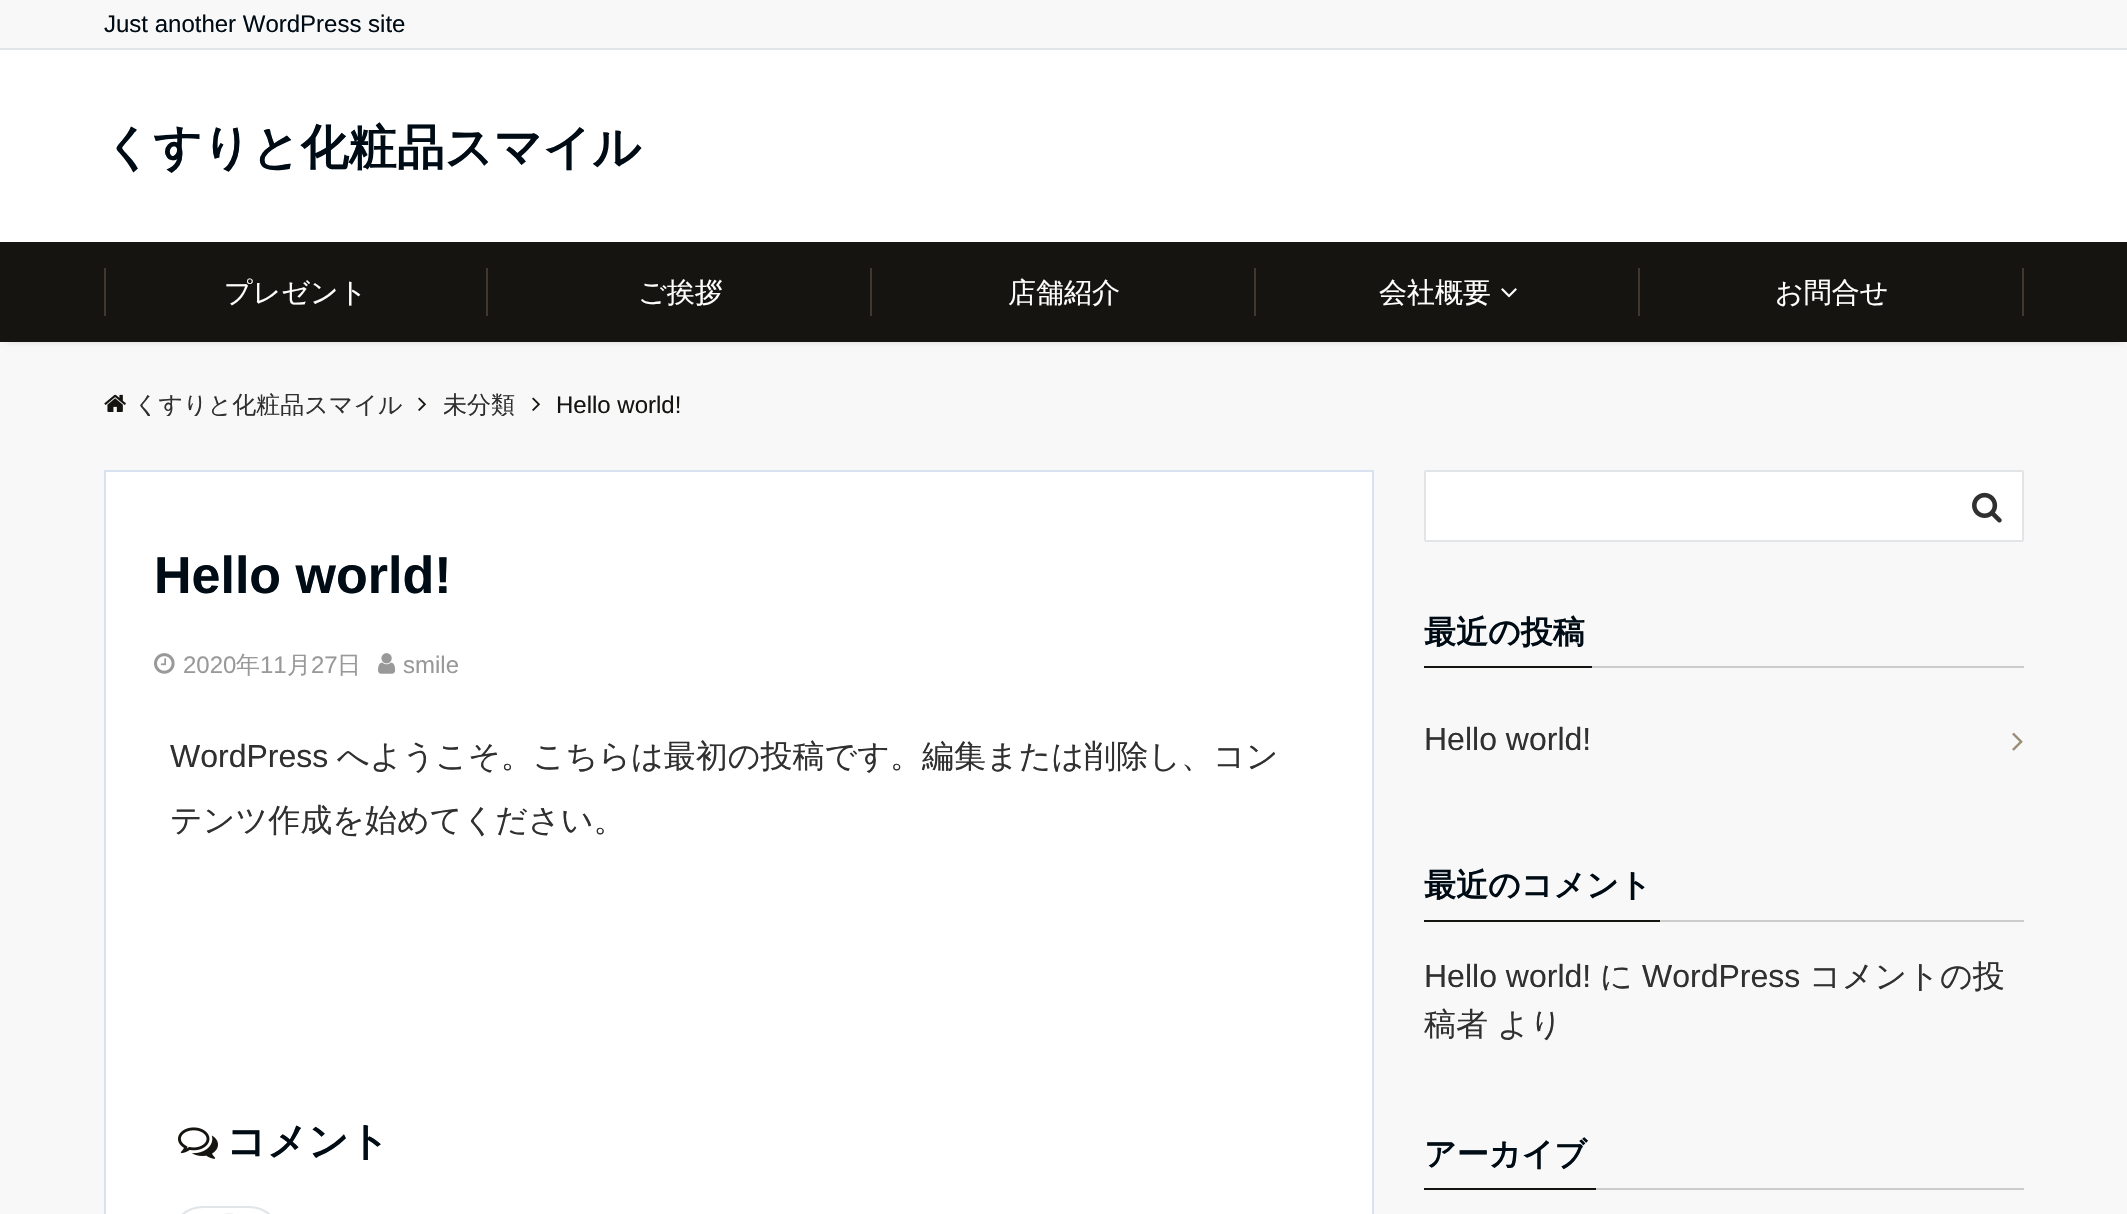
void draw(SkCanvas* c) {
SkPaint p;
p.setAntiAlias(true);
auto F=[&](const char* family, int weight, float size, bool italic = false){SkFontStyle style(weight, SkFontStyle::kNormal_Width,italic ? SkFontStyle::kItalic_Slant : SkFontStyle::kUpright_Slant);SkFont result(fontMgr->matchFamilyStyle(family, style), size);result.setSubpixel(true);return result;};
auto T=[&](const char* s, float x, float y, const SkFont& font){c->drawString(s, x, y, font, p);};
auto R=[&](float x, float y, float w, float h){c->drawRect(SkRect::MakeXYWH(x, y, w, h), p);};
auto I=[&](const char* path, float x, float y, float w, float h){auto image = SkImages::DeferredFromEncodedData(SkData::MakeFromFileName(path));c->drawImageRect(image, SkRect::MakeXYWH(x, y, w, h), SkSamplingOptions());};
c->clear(0xfff8f8f8);
p.setColor(0xffe2e5e8);
R(0,48,2127,2);
auto f1 = F("Liberation Sans",400,24);
p.setColor(0xff000c15);
T("Just another WordPress site",104,32,f1);
p.setColor(0xffffffff);
R(0,50,2127,192);
auto f2 = F("WenQuanYi Zen Hei",700,48);
p.setColor(0xff000c15);
T("くすりと化粧品スマイル",104,164,f2);
p.setColor(0x33000000);
p.setMaskFilter(SkMaskFilter::MakeBlur(kNormal_SkBlurStyle, 4));
c->drawRect(SkRect::MakeXYWH(6,252,2116,88),p);
p.setMaskFilter(nullptr);
p.setColor(0xff161410);
R(0,242,2127,100);
p.setColor(0xff3e382f);
R(104,268,2,48);
auto f3 = F("WenQuanYi Zen Hei",500,28);
p.setColor(0xffffffff);
T("プレゼント",224,302,f3);
p.setColor(0xff3e382f);
R(486,268,2,48);
p.setColor(0xffffffff);
T("ご挨拶",638,302,f3);
p.setColor(0xff3e382f);
R(870,268,2,48);
p.setColor(0xffffffff);
T("店舗紹介",1008,302,f3);
p.setColor(0xff3e382f);
R(1254,268,2,48);
p.setColor(0xffffffff);
T("会社概要",1379,302,f3);
I("1.png",1501,288,16,10);
p.setColor(0xff3e382f);
R(1638,268,2,48);
p.setColor(0xffffffff);
T("お問合せ",1775,302,f3);
p.setColor(0xff3e382f);
R(2022,268,2,48);
I("2.png",104,394,22,18);
c->save();
c->clipRect(SkRect::MakeXYWH(104,392,340,24));
auto f4 = F("WenQuanYi Zen Hei",500,24);
p.setColor(0xff303030);
T("くすりと化粧品スマイル",134,413,f4);
c->restore();
I("3.png",418,397,8,14);
c->save();
c->clipRect(SkRect::MakeXYWH(444,392,112,24));
T("未分類",443,413,f4);
c->restore();
I("3.png",532,397,8,14);
p.setColor(0xff161410);
T("Hello world!",556,413,f1);
p.setColor(0xffffffff);
c->drawRect(SkRect::MakeXYWH(105,471,1268,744),p);
p.setStroke(true);
p.setStrokeWidth(2);
p.setColor(0xffd9e2f0);
c->drawRect(SkRect::MakeXYWH(105,471,1268,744),p);
auto f5 = F("Liberation Sans",700,52);
p.setStroke(false);
p.setColor(0xff000c15);
T("Hello world!",154,593,f5);
I("4.png",154,653,21,21);
p.setColor(0xff999999);
T("2020",183,673,f1);
T("年",236,673,f4);
T("11",260,673,f1);
T("月",287,673,f4);
T("27",311,673,f1);
T("日",337,673,f4);
I("5.png",378,653,18,21);
T("smile",403,673,f1);
auto f6 = F("Liberation Sans",400,32);
p.setColor(0xff303030);
T("WordPress",170,767,f6);
auto f7 = F("WenQuanYi Zen Hei",500,32);
T("へようこそ。こちらは最初の投稿です。編集または削除し、コン",337,767,f7);
T("テンツ作成を始めてください。",170,831,f7);
I("6.png",178,1127,40,32);
auto f8 = F("WenQuanYi Zen Hei",700,40);
p.setColor(0xff000c15);
T("コメント",226,1155,f8);
p.setStroke(true);
p.setColor(0xffe2e5e8);
c->drawRoundRect(SkRect::MakeXYWH(171,1207,110,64),55,55,p);
I("7.png",224,1213,9,1);
p.setStroke(false);
p.setColor(0xffffffff);
c->drawRoundRect(SkRect::MakeXYWH(1425,471,598,70),1,1,p);
p.setStroke(true);
p.setColor(0xffe2e5e8);
c->drawRoundRect(SkRect::MakeXYWH(1425,471,598,70),1,1,p);
I("8.png",1972,492,30,31);
p.setStroke(false);
p.setColor(0xffcccccc);
R(1592,666,432,2);
p.setColor(0xff161410);
R(1424,666,168,2);
auto f9 = F("WenQuanYi Zen Hei",700,32);
p.setColor(0xff000c15);
T("最近の投稿",1424,643,f9);
p.setColor(0xff303030);
T("Hello world!",1424,750,f6);
I("9.png",2012,732,11,19);
p.setColor(0xffcccccc);
R(1660,920,364,2);
p.setColor(0xff161410);
R(1424,920,236,2);
p.setColor(0xff000c15);
T("最近のコメント",1424,896,f9);
p.setColor(0xff303030);
T("Hello world!",1424,987,f6);
T("に",1600,987,f7);
T("WordPress",1642,987,f6);
T("コメントの投",1809,987,f7);
T("稿者",1424,1035,f7);
T("より",1497,1035,f7);
p.setColor(0xffcccccc);
R(1596,1188,428,2);
p.setColor(0xff161410);
R(1424,1188,172,2);
p.setColor(0xff000c15);
T("アーカイブ",1424,1165,f9);
}
